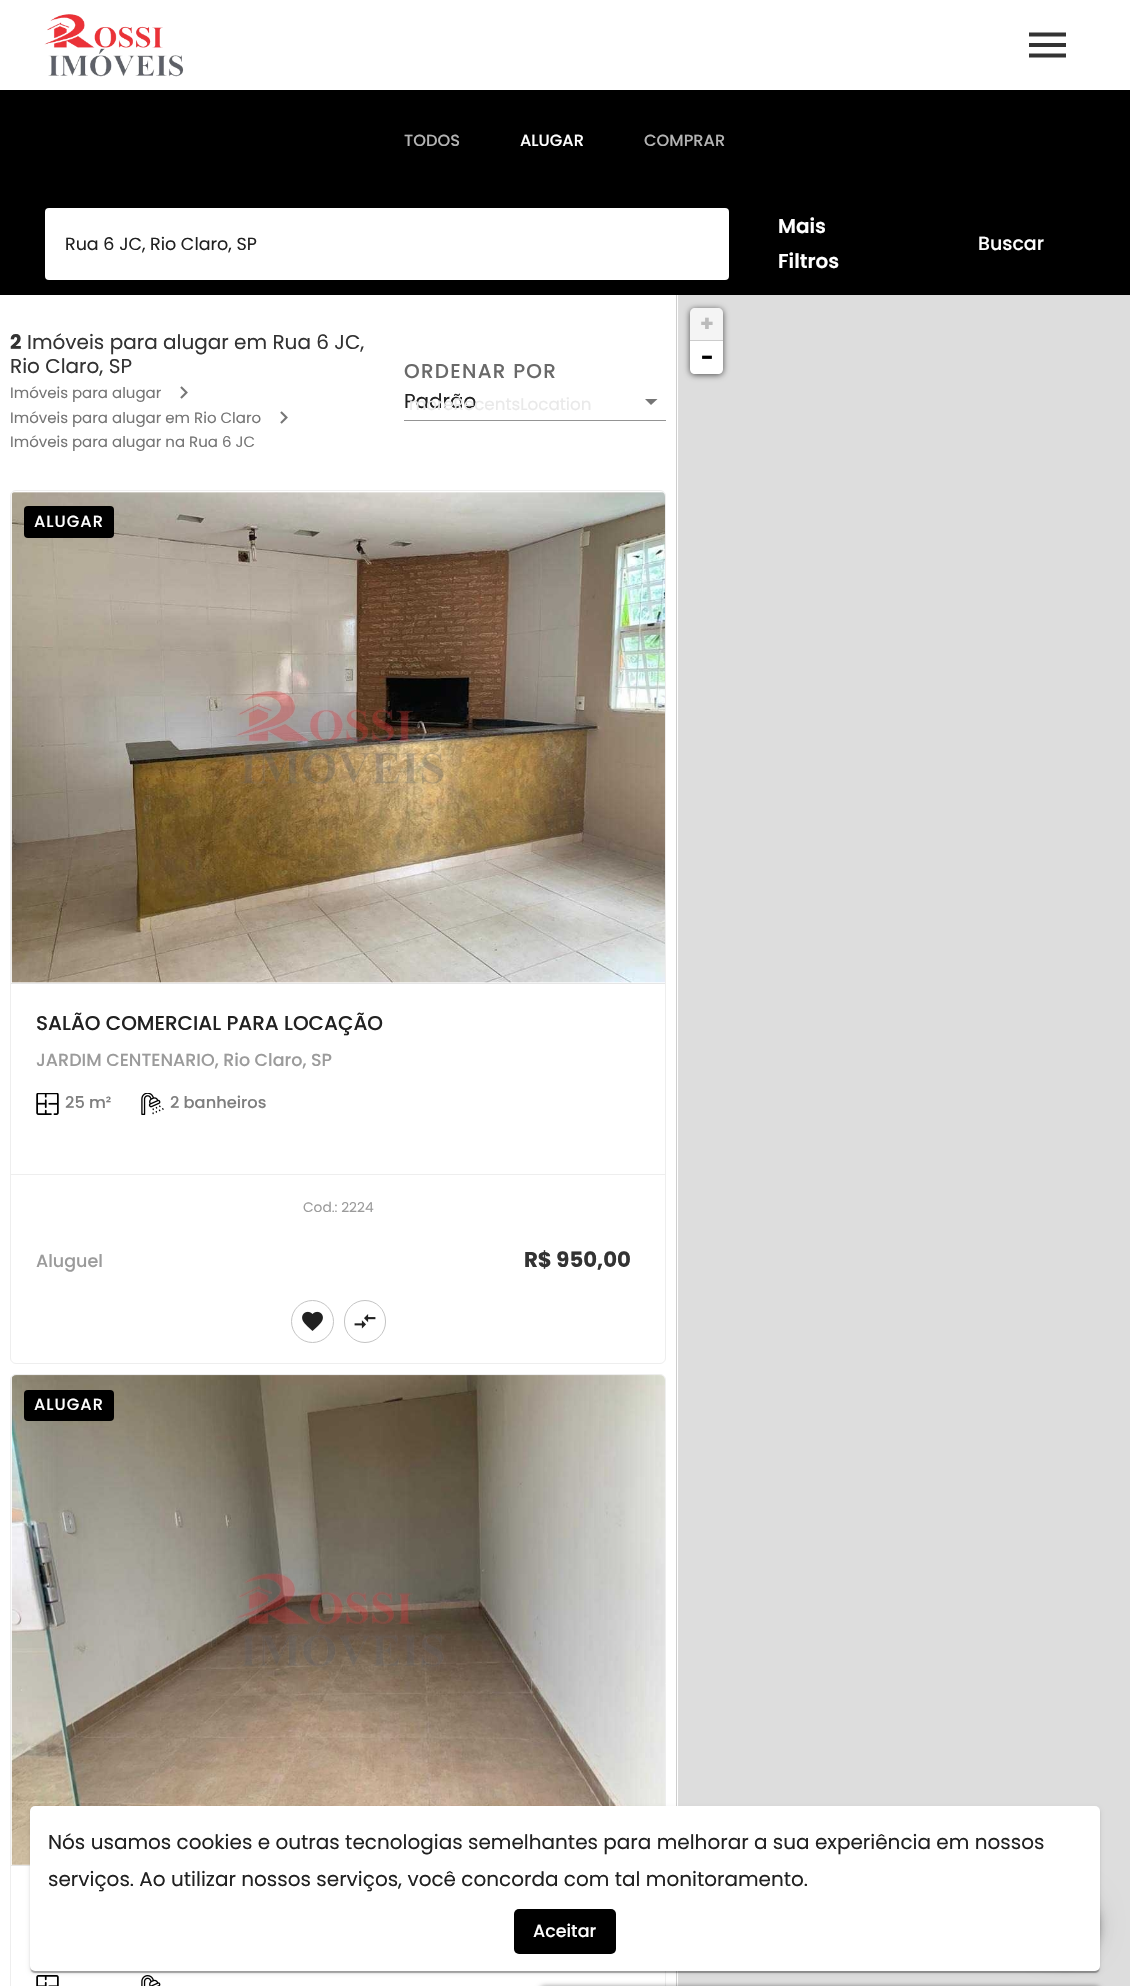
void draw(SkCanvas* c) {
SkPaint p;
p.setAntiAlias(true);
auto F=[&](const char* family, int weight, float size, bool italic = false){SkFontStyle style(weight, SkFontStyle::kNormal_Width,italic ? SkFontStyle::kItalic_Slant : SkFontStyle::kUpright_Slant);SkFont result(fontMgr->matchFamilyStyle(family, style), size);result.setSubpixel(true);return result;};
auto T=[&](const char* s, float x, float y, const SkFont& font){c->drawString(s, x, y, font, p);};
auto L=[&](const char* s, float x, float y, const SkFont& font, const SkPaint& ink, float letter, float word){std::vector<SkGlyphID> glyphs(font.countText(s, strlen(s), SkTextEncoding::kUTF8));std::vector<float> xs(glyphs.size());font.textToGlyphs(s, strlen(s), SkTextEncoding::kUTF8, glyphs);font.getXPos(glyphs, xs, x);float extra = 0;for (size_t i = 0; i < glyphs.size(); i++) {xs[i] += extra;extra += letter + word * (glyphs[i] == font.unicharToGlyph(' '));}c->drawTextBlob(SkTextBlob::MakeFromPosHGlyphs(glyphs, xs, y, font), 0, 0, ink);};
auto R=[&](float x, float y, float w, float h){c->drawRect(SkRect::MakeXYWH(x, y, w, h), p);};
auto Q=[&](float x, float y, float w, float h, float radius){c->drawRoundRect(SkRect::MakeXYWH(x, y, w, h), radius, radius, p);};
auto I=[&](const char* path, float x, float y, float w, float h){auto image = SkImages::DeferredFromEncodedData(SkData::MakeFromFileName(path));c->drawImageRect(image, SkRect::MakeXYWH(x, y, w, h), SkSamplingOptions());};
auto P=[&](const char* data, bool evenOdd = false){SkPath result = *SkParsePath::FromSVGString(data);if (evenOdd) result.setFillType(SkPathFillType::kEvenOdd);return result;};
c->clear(0xffffffff);
I("1.png",44,14,140,63);
p.setColor(0xff333333);
c->drawPath(P("M1029 57.5h37v-4h-37zm0-10.5h37v-4h-37zm0-14.5v4h37v-4z"),p);
p.setColor(0xff000000);
R(0,90,1130,205);
auto f1 = F("Poppins",500,16.25);
p.setColor(0xffb3b3b3);
T("TODOS",404,146,f1);
p.setColor(0xffffffff);
T("ALUGAR",520,146,f1);
p.setColor(0xffb3b3b3);
T("COMPRAR",644,146,f1);
p.setColor(0xffffffff);
Q(45,208,684,72,4);
auto f2 = F("Poppins",400,17.5);
p.setColor(0xff212121);
T("Rua 6 JC, Rio Claro, SP",65,250,f2);
auto f3 = F("Poppins",600,20);
p.setColor(0xffffffff);
T("Mais",778,233,f3);
T("Filtros",778,268,f3);
auto f4 = F("Poppins",500,19);
T("Buscar",978,250,f4);
p.setColor(0xffcecece);
R(676,295,1,1691);
auto f5 = F("Poppins",700,20);
p.setColor(0xff333333);
T("2",10,349,f5);
auto f6 = F("Poppins",400,20);
T("Imóveis para alugar em Rua 6 JC,",27,349,f6);
T("Rio Claro, SP",10,373,f6);
auto f7 = F("Poppins",400,15);
p.setColor(0xff757575);
T("Imóveis para alugar",10,398,f7);
I("2.png",180,386,8,13);
T("Imóveis para alugar em Rio Claro",10,423,f7);
I("2.png",280,411,8,13);
T("Imóveis para alugar na Rua 6 JC",10,447,f7);
auto f8 = F("Poppins",500,20);
p.setColor(0xff696969);
L("ORDENAR POR",404,378,f8,p,1.25,0);
p.setColor(0xff212121);
T("Padrão",404,408,f6);
auto f9 = F("Poppins",400,16.75);
p.setColor(0xffe9e9e9);
T("moreRecentsLocation",409,410,f9);
p.setColor(0xff757575);
c->drawPath(P("M645 399l6 6l6.5-6z"),p);
p.setColor(0xff949494);
R(404,420,262,1);
p.setStroke(true);
p.setStrokeWidth(1);
p.setColor(0xffeeeeee);
c->drawRoundRect(SkRect::MakeXYWH(10.5,490.5,655,873),5.5,5.5,p);
p.setStroke(false);
p.setColor(0xffe6e6e6);
R(11,983,654,1);
I("3.png",11,492,654,491);
p.setColor(0xff000000);
Q(24,506,90,32,4);
p.setColor(0xffffffff);
L("ALUGAR",34,527,f1,p,1,0);
p.setColor(0xff212121);
T("SALÃO COMERCIAL PARA LOCAÇÃO",36,1030,f8);
auto f10 = F("Poppins",500,17.5);
p.setColor(0xff9b9b9b);
T("JARDIM CENTENARIO, Rio Claro, SP",36,1066,f10);
I("4.png",36,1093,23,22);
p.setColor(0xff7e7e7e);
T("25 m²",65,1108,f1);
I("5.png",141,1093,23,22);
T("2 banheiros",170,1108,f1);
p.setColor(0xffeeeeee);
R(11,1174,654,1);
auto f11 = F("Poppins",400,13.75);
p.setColor(0xff9b9b9b);
T("Cod.: 2224",303,1212,f11);
T("Aluguel",36,1267,f10);
auto f12 = F("Poppins",700,21.25);
p.setColor(0xff333333);
T("R$ 950,00",524,1267,f12);
p.setStroke(true);
p.setColor(0xffc4c4c4);
c->drawCircle(312.5,1321.5,21,p);
I("6.png",302,1311,21,20);
c->drawRoundRect(SkRect::MakeXYWH(344.5,1300.5,41,42),20.5,20.5,p);
I("7.png",354,1314,22,15);
p.setColor(0xffeeeeee);
c->drawRoundRect(SkRect::MakeXYWH(10.5,1374.5,655,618),5.5,5.5,p);
p.setStroke(false);
p.setColor(0xffe6e6e6);
R(11,1865,19,1);
I("8.png",11,1375,654,490);
p.setColor(0xff000000);
Q(24,1390,90,31,4);
p.setColor(0xffffffff);
L("ALUGAR",34,1410,f1,p,1,0);
I("9.png",36,1975,23,11);
I("10.png",141,1975,20,11);
p.setColor(0xffdddddd);
R(678,295,452,1691);
p.setColor(0xa6000000);
p.setMaskFilter(SkMaskFilter::MakeBlur(kNormal_SkBlurStyle, 3));
c->drawRoundRect(SkRect::MakeXYWH(690,309,33,66),5,5,p);
p.setMaskFilter(nullptr);
p.setColor(0xfff4f4f4);
c->drawPath(P("M695 308h23c3 0 5 2 5 5v28h-33v-28c0-3 2-5 5-5z"),p);
p.setColor(0xffcccccc);
R(690,340,33,1);
auto f13 = F("Poppins",700,22);
p.setColor(0xffbbbbbb);
T("+",700,331,f13);
p.setColor(0xffffffff);
c->drawPath(P("M690 341h33v28c0 3-2 5-5 5h-23c-3 0-5-2-5-5z"),p);
p.setColor(0xff000000);
T("−",701,365,f13);
p.setColor(0x1f000000);
p.setMaskFilter(SkMaskFilter::MakeBlur(kNormal_SkBlurStyle, 2));
c->drawRoundRect(SkRect::MakeXYWH(30,1808,1070,165),5,5,p);
p.setMaskFilter(nullptr);
p.setColor(0x24000000);
p.setMaskFilter(SkMaskFilter::MakeBlur(kNormal_SkBlurStyle, .5));
c->drawRoundRect(SkRect::MakeXYWH(30,1808,1070,165),5,5,p);
p.setMaskFilter(nullptr);
p.setColor(0x33000000);
p.setMaskFilter(SkMaskFilter::MakeBlur(kNormal_SkBlurStyle, .5));
c->drawRoundRect(SkRect::MakeXYWH(31,1810,1068,163),4,4,p);
p.setMaskFilter(nullptr);
p.setColor(0x1f000000);
p.setMaskFilter(SkMaskFilter::MakeBlur(kNormal_SkBlurStyle, 11));
c->drawRoundRect(SkRect::MakeXYWH(1030,1888,70,70),35,35,p);
p.setMaskFilter(nullptr);
p.setColor(0x24000000);
p.setMaskFilter(SkMaskFilter::MakeBlur(kNormal_SkBlurStyle, 6));
c->drawRoundRect(SkRect::MakeXYWH(1030,1894,70,70),35,35,p);
p.setMaskFilter(nullptr);
p.setColor(0x33000000);
p.setMaskFilter(SkMaskFilter::MakeBlur(kNormal_SkBlurStyle, 3));
c->drawRoundRect(SkRect::MakeXYWH(1031,1891,68,68),34,34,p);
p.setMaskFilter(nullptr);
p.setColor(0xffffffff);
Q(30,1806,1070,165,5);
p.setColor(0xff212121);
T("Nós usamos cookies e outras tecnologias semelhantes para melhorar a sua experiência em nossos",48,1849,f6);
T("serviços. Ao utilizar nossos serviços, você concorda com tal monitoramento.",48,1886,f6);
p.setColor(0xff000000);
Q(514,1909,102,45,5);
p.setColor(0xffffffff);
T("Aceitar",533,1937,f10);
p.setColor(0x66000000);
p.setMaskFilter(SkMaskFilter::MakeBlur(kNormal_SkBlurStyle, 2.5));
c->drawRoundRect(SkRect::MakeXYWH(539,1986,562,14),6,6,p);
p.setMaskFilter(nullptr);
}
